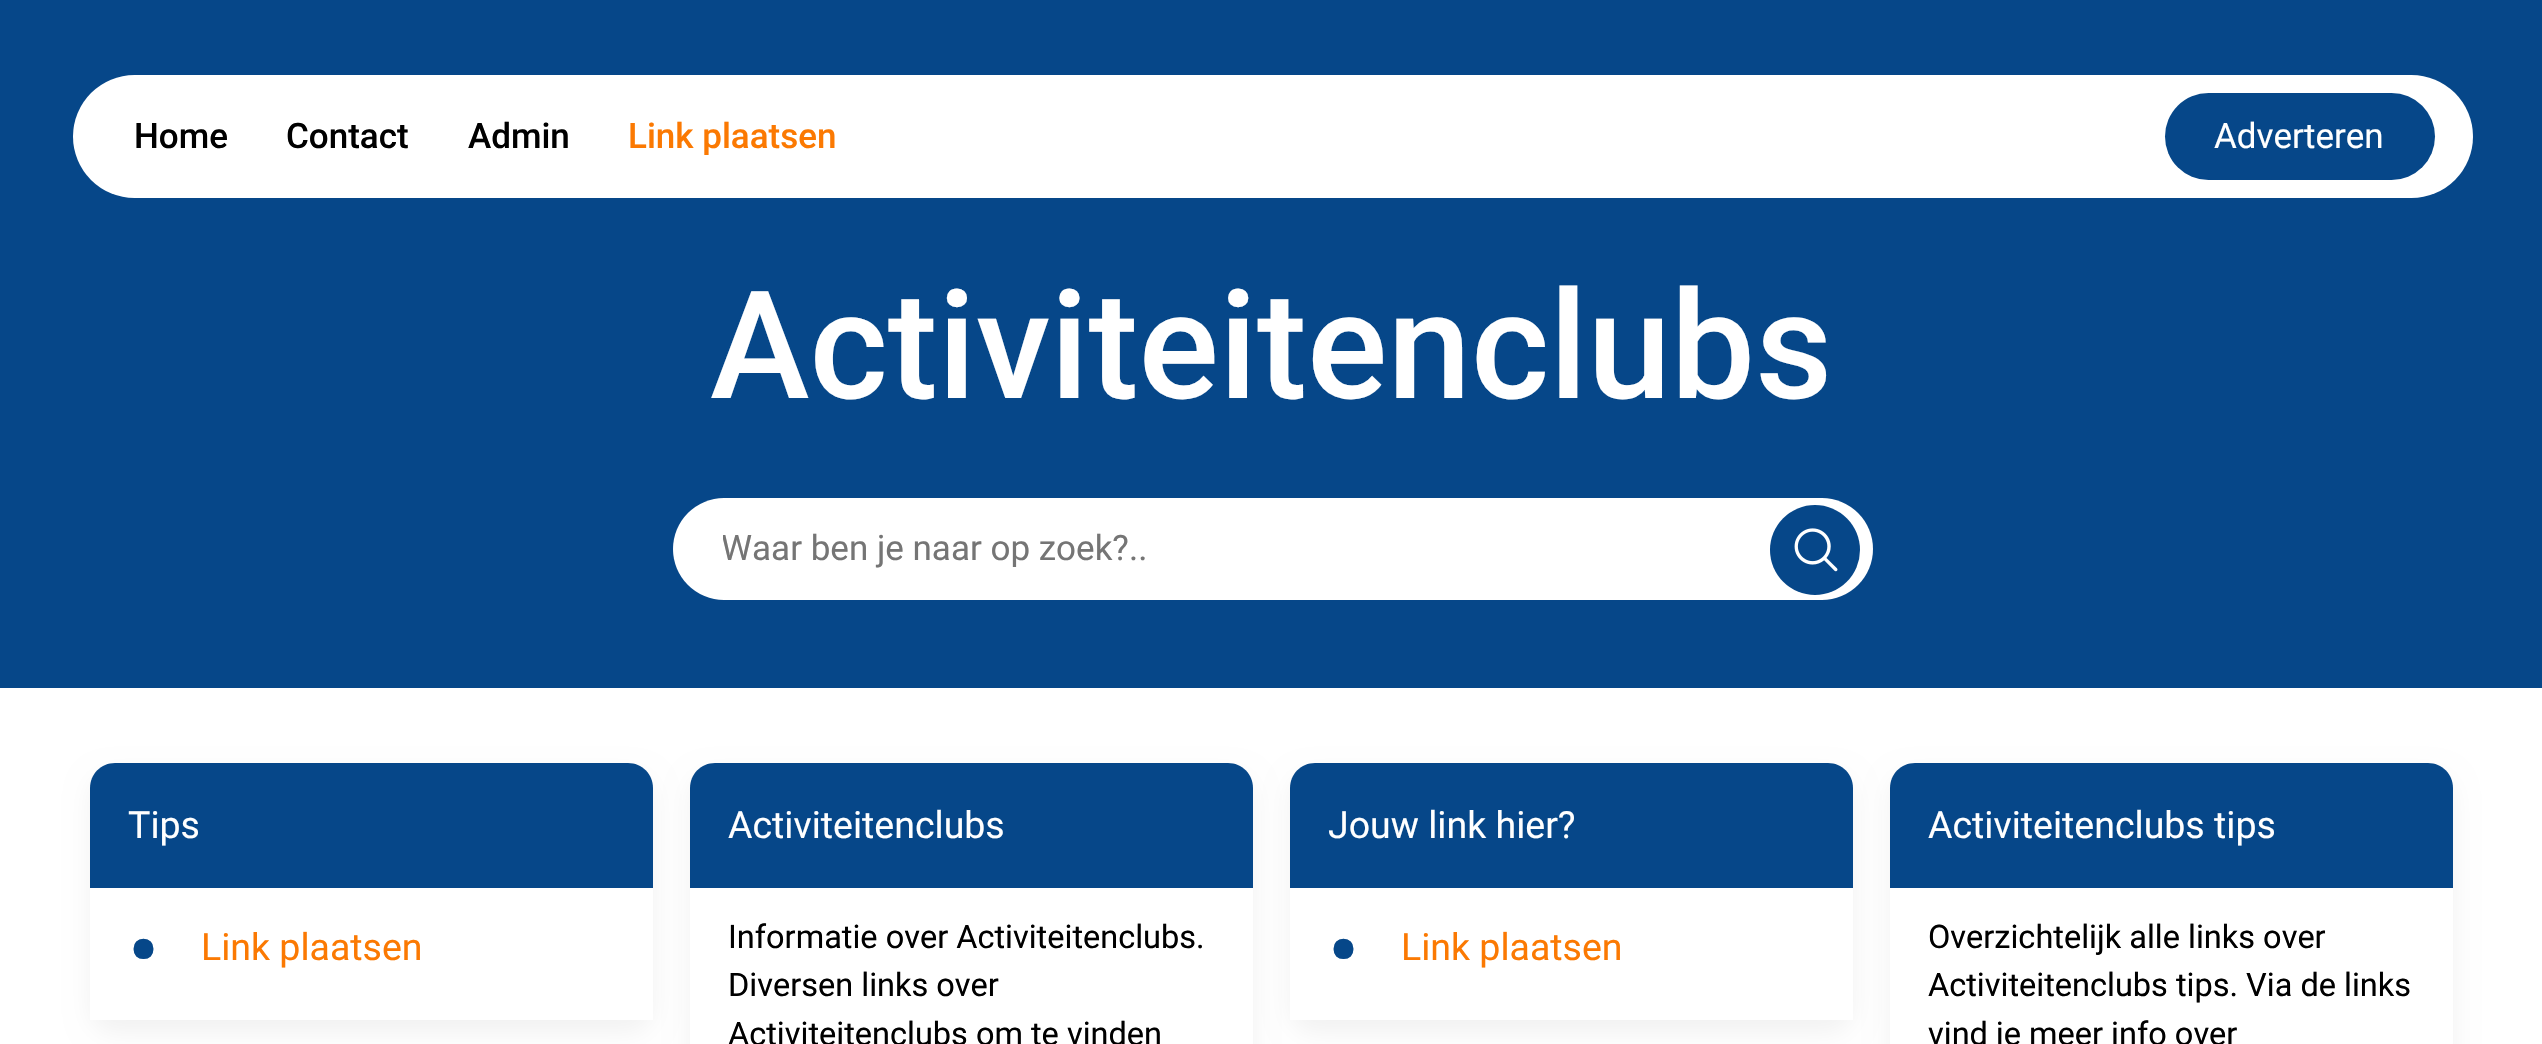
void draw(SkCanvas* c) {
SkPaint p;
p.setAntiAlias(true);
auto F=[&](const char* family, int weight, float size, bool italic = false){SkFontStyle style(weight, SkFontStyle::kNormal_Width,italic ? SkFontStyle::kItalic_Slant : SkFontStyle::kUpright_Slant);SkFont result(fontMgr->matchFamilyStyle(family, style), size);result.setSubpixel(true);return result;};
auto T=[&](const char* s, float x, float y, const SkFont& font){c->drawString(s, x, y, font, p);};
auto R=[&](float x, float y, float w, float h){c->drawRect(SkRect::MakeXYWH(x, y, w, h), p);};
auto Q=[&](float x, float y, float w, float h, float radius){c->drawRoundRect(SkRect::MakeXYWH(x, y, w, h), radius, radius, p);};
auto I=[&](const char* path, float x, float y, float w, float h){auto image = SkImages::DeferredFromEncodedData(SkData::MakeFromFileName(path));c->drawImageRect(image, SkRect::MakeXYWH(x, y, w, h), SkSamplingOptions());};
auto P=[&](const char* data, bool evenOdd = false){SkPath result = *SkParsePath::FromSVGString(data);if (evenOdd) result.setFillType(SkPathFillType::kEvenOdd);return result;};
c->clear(0xffffffff);
p.setColor(0xff064789);
R(0,0,2542,688);
p.setColor(0xffffffff);
Q(73,75,2400,123,61.5);
auto f1 = F("Roboto",500,35);
p.setColor(0xff000000);
T("Home",134,148,f1);
T("Contact",286,148,f1);
T("Admin",468,148,f1);
p.setColor(0xfffb7902);
T("Link plaatsen",628,148,f1);
p.setColor(0xff064789);
Q(2165,93,270,87,43.5);
auto f2 = F("Roboto",400,35);
p.setColor(0xffffffff);
T("Adverteren",2214,148,f2);
auto f3 = F("Roboto",500,150);
T("Activiteitenclubs",710,398,f3);
Q(673,498,1200,102,51);
c->save();
c->clipRect(SkRect::MakeXYWH(723,528,1050,40));
p.setColor(0xff757575);
T("Waar ben je naar op zoek?..",721,560,f2);
c->restore();
p.setColor(0xff064789);
c->drawCircle(1815,550,45,p);
I("1.png",1794,528,44,44);
p.setColor(0x0d000000);
p.setMaskFilter(SkMaskFilter::MakeBlur(kNormal_SkBlurStyle, 12.5));
c->drawRoundRect(SkRect::MakeXYWH(90,775,563,258),25,25,p);
p.setMaskFilter(nullptr);
p.setColor(0xffffffff);
c->drawPath(P("M115 763h513c14 0 25 11 25 25v232h-563v-232c0-14 11-25 25-25z"),p);
p.setColor(0xff064789);
c->drawPath(P("M115 763h513c14 0 25 11 25 25v100h-563v-100c0-14 11-25 25-25z"),p);
auto f4 = F("Roboto",400,37.5);
p.setColor(0xffffffff);
T("Tips",128,838,f4);
auto f5 = F("Roboto",700,85);
p.setColor(0xff064789);
T("•",128,980,f5);
p.setColor(0xfffb7902);
T("Link plaatsen",201,960,f4);
p.setColor(0x0d000000);
p.setMaskFilter(SkMaskFilter::MakeBlur(kNormal_SkBlurStyle, 12.5));
c->drawRoundRect(SkRect::MakeXYWH(690,775,563,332),25,25,p);
p.setMaskFilter(nullptr);
p.setColor(0xffffffff);
c->drawPath(P("M715 763h513c14 0 25 11 25 25v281h-563v-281c0-14 11-25 25-25z"),p);
p.setColor(0xff064789);
c->drawPath(P("M715 763h513c14 0 25 11 25 25v100h-563v-100c0-14 11-25 25-25z"),p);
p.setColor(0xffffffff);
T("Activiteitenclubs",728,838,f4);
auto f6 = F("Roboto",400,32.5);
p.setColor(0xff000000);
T("Informatie over Activiteitenclubs.",728,948,f6);
T("Diversen links over",728,996,f6);
T("Activiteitenclubs om te vinden",728,1045,f6);
p.setColor(0x0d000000);
p.setMaskFilter(SkMaskFilter::MakeBlur(kNormal_SkBlurStyle, 12.5));
c->drawRoundRect(SkRect::MakeXYWH(1290,775,563,258),25,25,p);
p.setMaskFilter(nullptr);
p.setColor(0xffffffff);
c->drawPath(P("M1315 763h513c14 0 25 11 25 25v232h-563v-232c0-14 11-25 25-25z"),p);
p.setColor(0xff064789);
c->drawPath(P("M1315 763h513c14 0 25 11 25 25v100h-563v-100c0-14 11-25 25-25z"),p);
p.setColor(0xffffffff);
T("Jouw link hier?",1328,838,f4);
p.setColor(0xff064789);
T("•",1328,980,f5);
p.setColor(0xfffb7902);
T("Link plaatsen",1401,960,f4);
p.setColor(0x0d000000);
p.setMaskFilter(SkMaskFilter::MakeBlur(kNormal_SkBlurStyle, 12.5));
c->drawRoundRect(SkRect::MakeXYWH(1890,775,563,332),25,25,p);
p.setMaskFilter(nullptr);
p.setColor(0xffffffff);
c->drawPath(P("M1915 763h513c14 0 25 11 25 25v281h-563v-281c0-14 11-25 25-25z"),p);
p.setColor(0xff064789);
c->drawPath(P("M1915 763h513c14 0 25 11 25 25v100h-563v-100c0-14 11-25 25-25z"),p);
p.setColor(0xffffffff);
T("Activiteitenclubs tips",1928,838,f4);
p.setColor(0xff000000);
T("Overzichtelijk alle links over",1928,948,f6);
T("Activiteitenclubs tips. Via de links",1928,996,f6);
T("vind je meer info over",1928,1045,f6);
}
